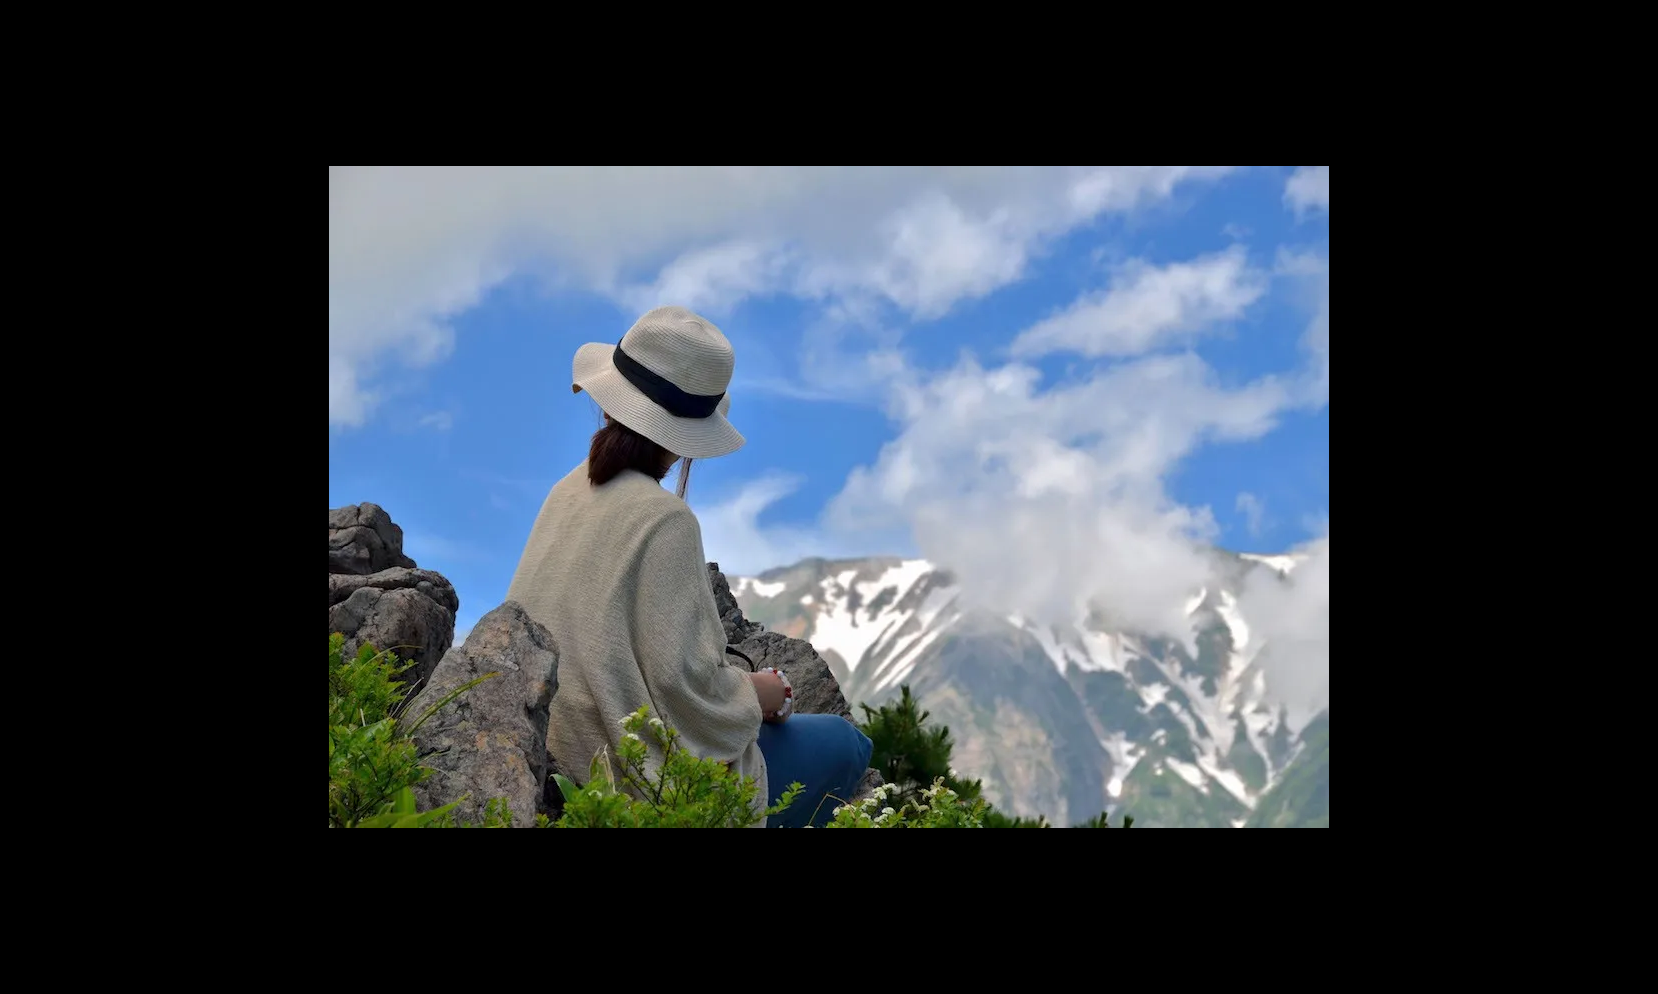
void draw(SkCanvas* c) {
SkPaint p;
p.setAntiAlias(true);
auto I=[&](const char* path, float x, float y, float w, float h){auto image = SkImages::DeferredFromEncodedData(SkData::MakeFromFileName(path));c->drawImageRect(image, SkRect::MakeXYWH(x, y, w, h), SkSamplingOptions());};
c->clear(0xff000000);
I("1.png",329,166,1000,662);
}
